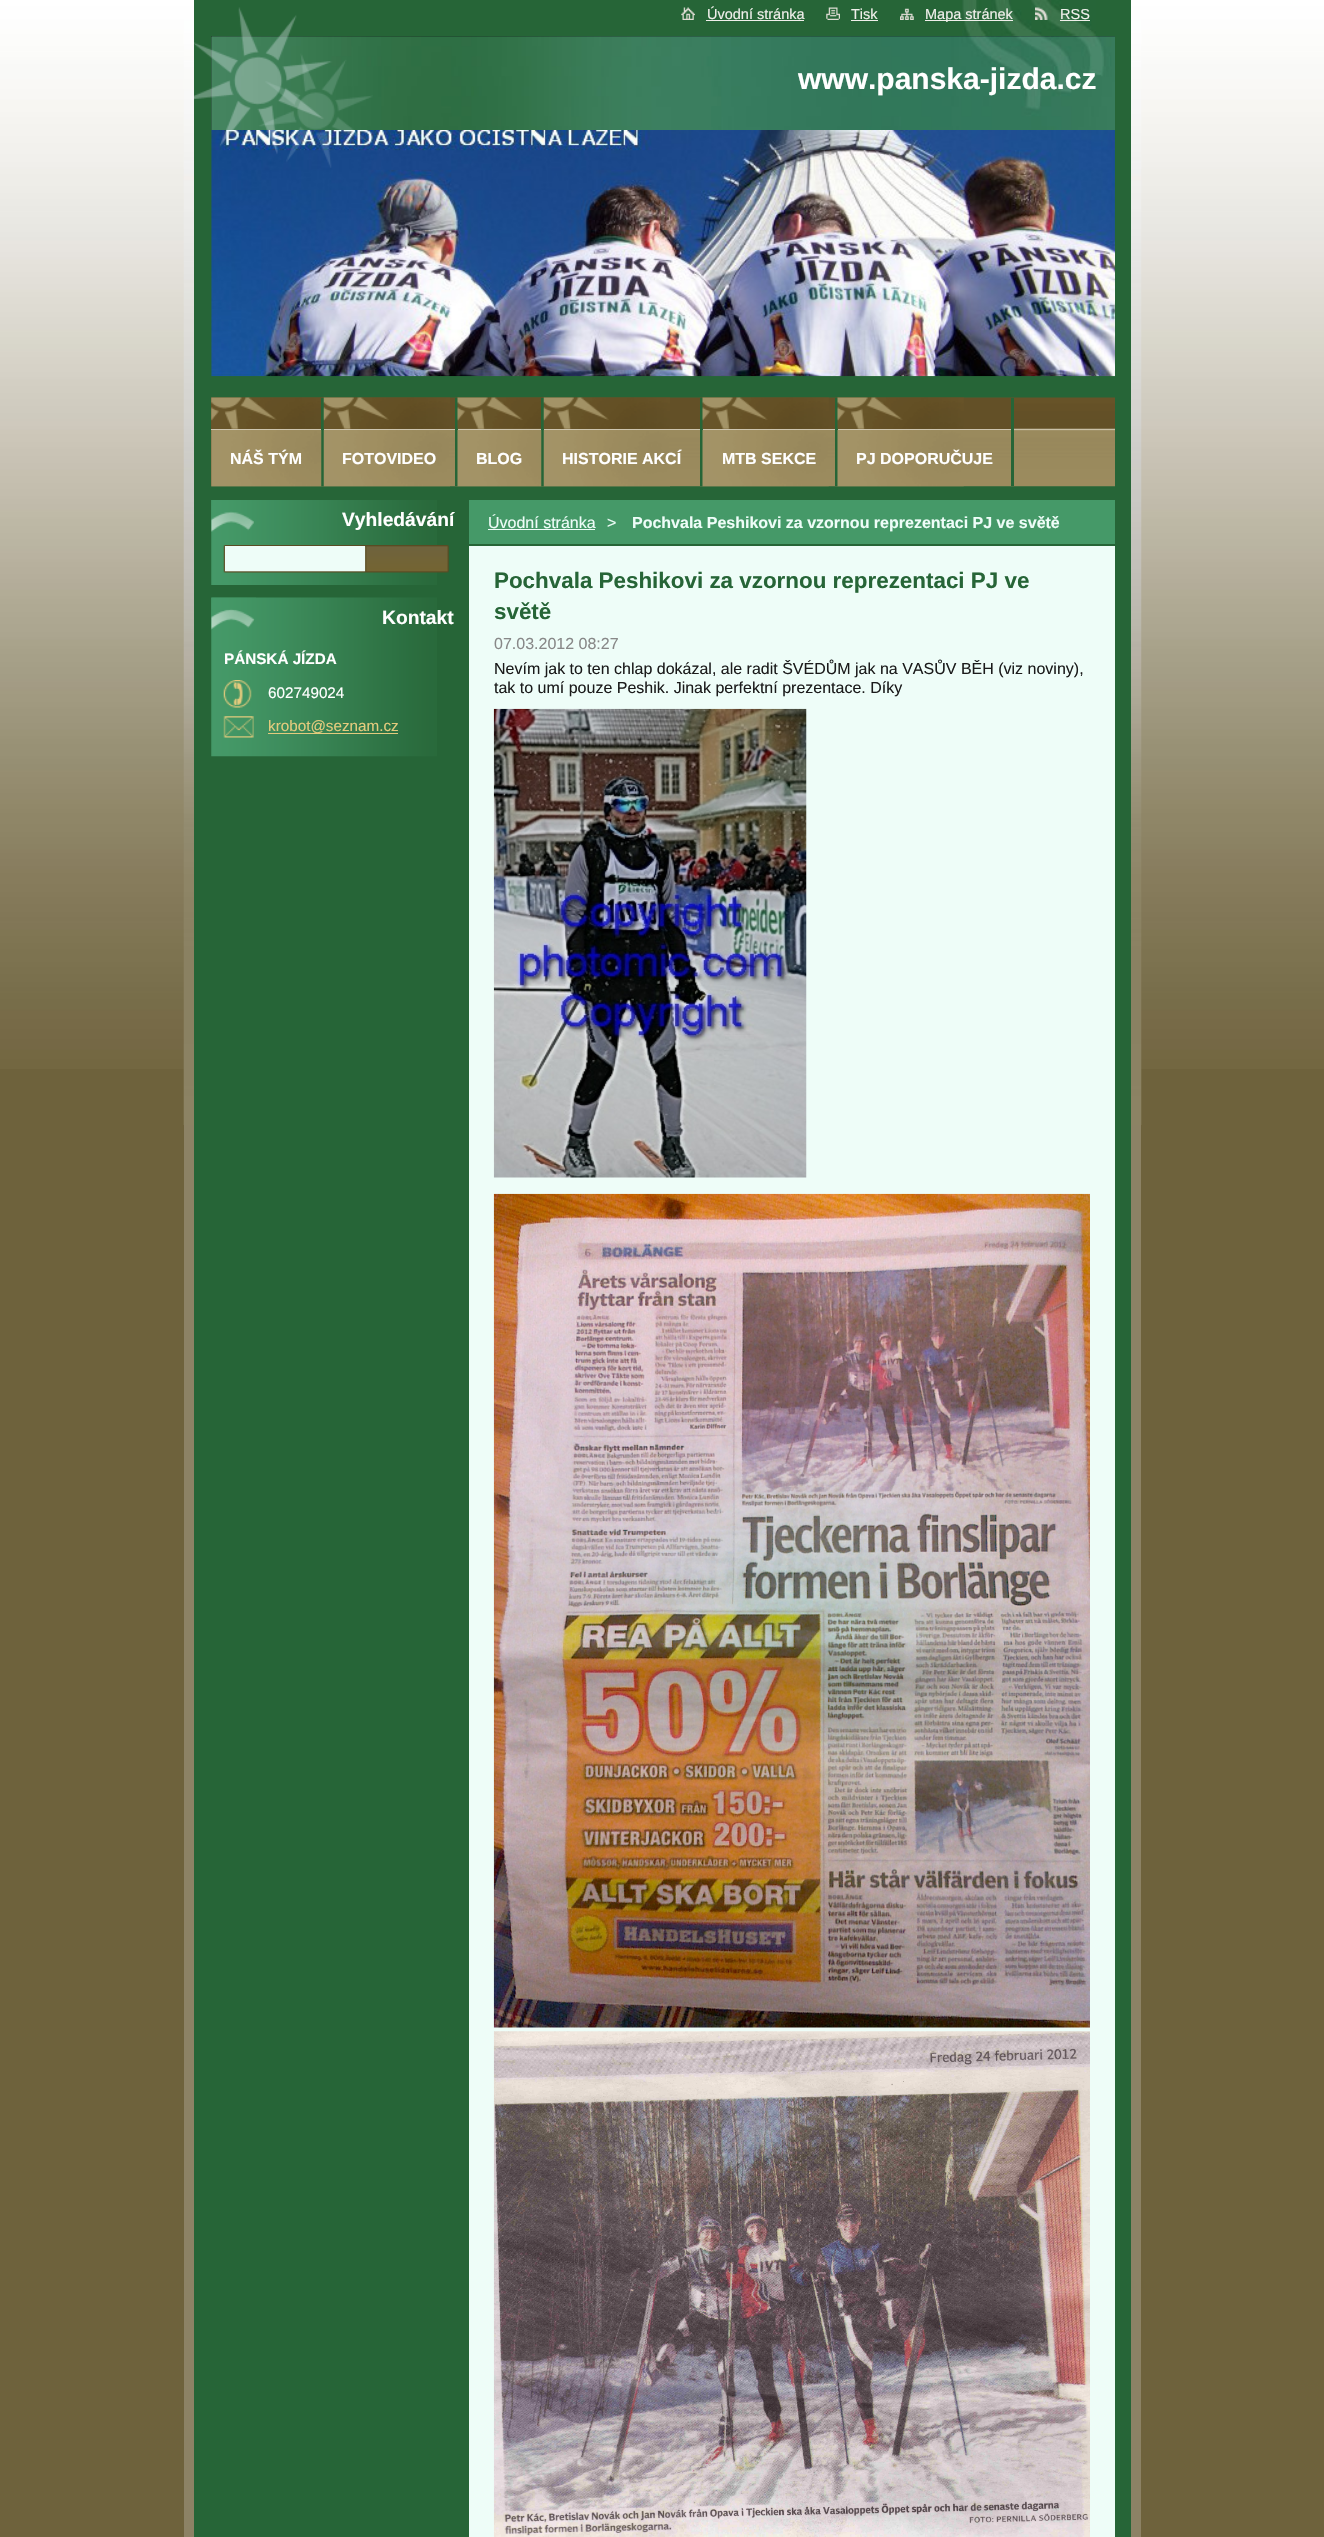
void draw(SkCanvas* c) {
SkPaint p;
p.setAntiAlias(true);
auto F=[&](const char* family, int weight, float size, bool italic = false){SkFontStyle style(weight, SkFontStyle::kNormal_Width,italic ? SkFontStyle::kItalic_Slant : SkFontStyle::kUpright_Slant);SkFont result(fontMgr->matchFamilyStyle(family, style), size);result.setSubpixel(true);return result;};
auto T=[&](const char* s, float x, float y, const SkFont& font){c->drawString(s, x, y, font, p);};
auto R=[&](float x, float y, float w, float h){c->drawRect(SkRect::MakeXYWH(x, y, w, h), p);};
auto I=[&](const char* path, float x, float y, float w, float h){auto image = SkImages::DeferredFromEncodedData(SkData::MakeFromFileName(path));c->drawImageRect(image, SkRect::MakeXYWH(x, y, w, h), SkSamplingOptions());};
c->clear(0xff6e623c);
I("1.png",0,0,1324,1069);
p.setColor(0xff8c8265);
R(184,1125,957,1412);
I("2.png",183,0,959,1125);
p.setColor(0xff266537);
R(194,0,937,2537);
I("3.png",962,0,134,36);
p.setColor(0xff000000);
R(211,36,904,94);
I("9.png",211,36,904,94);
I("10.png",211,130,904,247);
I("4.png",194,7,179,161);
I("5.png",681,7,14,13);
auto f1 = F("Liberation Sans",400,14.5);
p.setColor(0xfff0efeb);
T("Úvodní stránka",707,19,f1);
R(706,20,98,1);
I("6.png",826,7,14,13);
T("Tisk",851,19,f1);
R(851,20,27,1);
I("7.png",900,8,14,12);
R(925,20,88,1);
T("Mapa stránek",925,19,f1);
I("8.png",1035,7,13,13);
T("RSS",1060,19,f1);
R(1060,20,30,1);
auto f2 = F("Liberation Sans",700,30);
p.setColor(0xffffffff);
T("www.panska-jizda.cz",798,89,f2);
I("11.png",211,397,904,90);
p.setColor(0xff635027);
R(211,398,110,88);
I("12.png",211,397,113,32);
p.setColor(0xff266537);
R(321,398,3,88);
I("13.png",211,430,111,57);
p.setColor(0xffcdc5af);
R(211,429,110,1);
auto f3 = F("Liberation Sans",700,16);
p.setColor(0xffffffff);
T("NÁŠ TÝM",230,464,f3);
p.setColor(0xff635027);
R(324,398,131,31);
I("14.png",323,397,127,32);
p.setColor(0xff266537);
R(455,398,3,88);
p.setColor(0xff9a8a5d);
R(450,430,5,1);
I("15.png",323,430,127,57);
p.setColor(0xffcdc5af);
R(324,429,131,1);
p.setColor(0xffffffff);
T("FOTOVIDEO",342,464,f3);
I("16.png",457,397,87,32);
p.setColor(0xff266537);
R(541,398,3,88);
I("17.png",457,430,85,57);
p.setColor(0xffcdc5af);
R(458,429,83,1);
p.setColor(0xffffffff);
T("BLOG",476,464,f3);
p.setColor(0xff635027);
R(544,398,156,31);
I("18.png",543,397,127,32);
p.setColor(0xff266537);
R(700,398,3,88);
p.setColor(0xff9a8a5d);
R(670,430,30,1);
I("15.png",543,430,127,57);
p.setColor(0xffcdc5af);
R(544,429,156,1);
p.setColor(0xffffffff);
T("HISTORIE AKCÍ",562,464,f3);
p.setColor(0xff635027);
R(703,398,132,31);
I("19.png",702,397,127,32);
p.setColor(0xff266537);
R(835,398,3,88);
p.setColor(0xff9a8a5d);
R(828,430,7,1);
I("20.png",702,430,127,57);
p.setColor(0xffcdc5af);
R(703,429,132,1);
p.setColor(0xffffffff);
T("MTB SEKCE",722,464,f3);
p.setColor(0xff635027);
R(838,398,173,31);
I("21.png",837,397,127,32);
p.setColor(0xff266537);
R(1011,398,3,88);
p.setColor(0xff9a8a5d);
R(963,430,48,1);
I("22.png",837,430,127,57);
p.setColor(0xffcdc5af);
R(838,429,173,1);
p.setColor(0xffffffff);
T("PJ DOPORUČUJE",856,464,f3);
I("23.png",211,500,226,85);
I("24.png",211,500,43,32);
auto f4 = F("Liberation Sans",700,19.25);
T("Vyhledávání",342,526,f4);
I("25.png",223,545,226,28);
p.setColor(0xffeefdf8);
R(225,546,140,25);
I("26.png",211,597,226,160);
I("27.png",211,597,45,33);
p.setColor(0xffffffff);
T("Kontakt",382,624,f4);
auto f5 = F("Liberation Sans",700,15.25);
T("PÁNSKÁ JÍZDA",224,664,f5);
I("28.png",223,680,29,28);
auto f6 = F("Liberation Sans",400,15.25);
T("602749024",268,698,f6);
I("29.png",223,716,31,22);
p.setColor(0xffe4cb7d);
R(268,733,130,1);
T("krobot@seznam.cz",268,731,f6);
p.setColor(0xff459968);
R(469,500,646,44);
auto f7 = F("Liberation Sans",400,16);
p.setColor(0xffeefdf8);
T("Úvodní stránka",488,528,f7);
R(488,529,107,1);
T(">",607,528,f7);
T("Pochvala Peshikovi za vzornou reprezentaci PJ ve světě",632,528,f3);
R(469,546,646,1991);
auto f8 = F("Liberation Sans",700,22.4);
p.setColor(0xff266537);
T("Pochvala Peshikovi za vzornou reprezentaci PJ ve",494,588,f8);
T("světě",494,619,f8);
p.setColor(0xff888888);
T("07.03.2012 08:27",494,649,f7);
p.setColor(0xff1b1b1b);
T("Nevím jak to ten chlap dokázal, ale radit ŠVÉDŮM jak na VASŮV BĚH (viz noviny),",494,674,f7);
T("tak to umí pouze Peshik. Jinak perfektní prezentace. Díky",494,693,f7);
I("30.png",493,708,314,470);
I("31.png",493,1193,597,835);
I("32.png",493,2031,597,506);
}
